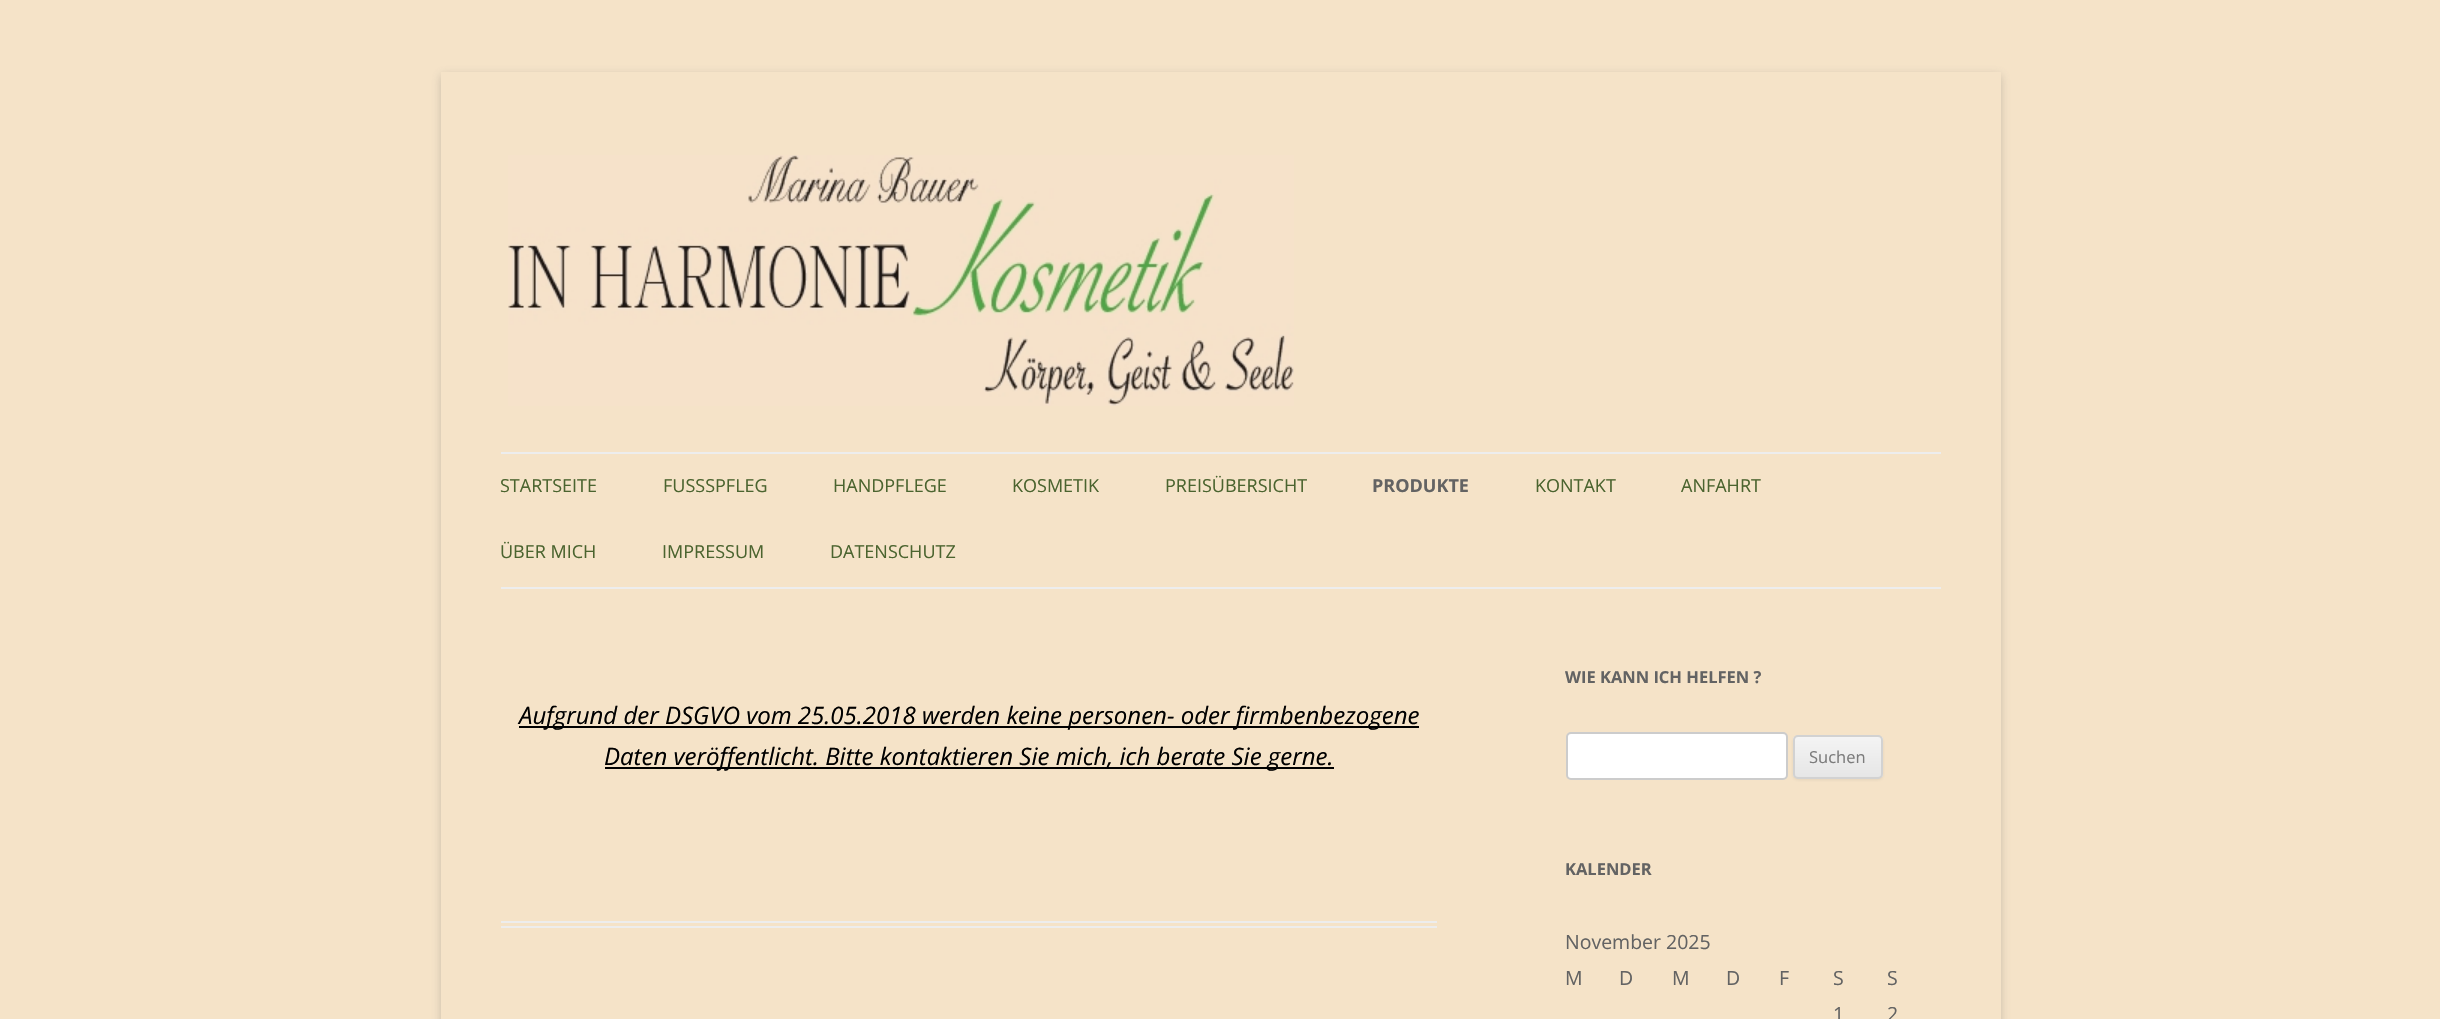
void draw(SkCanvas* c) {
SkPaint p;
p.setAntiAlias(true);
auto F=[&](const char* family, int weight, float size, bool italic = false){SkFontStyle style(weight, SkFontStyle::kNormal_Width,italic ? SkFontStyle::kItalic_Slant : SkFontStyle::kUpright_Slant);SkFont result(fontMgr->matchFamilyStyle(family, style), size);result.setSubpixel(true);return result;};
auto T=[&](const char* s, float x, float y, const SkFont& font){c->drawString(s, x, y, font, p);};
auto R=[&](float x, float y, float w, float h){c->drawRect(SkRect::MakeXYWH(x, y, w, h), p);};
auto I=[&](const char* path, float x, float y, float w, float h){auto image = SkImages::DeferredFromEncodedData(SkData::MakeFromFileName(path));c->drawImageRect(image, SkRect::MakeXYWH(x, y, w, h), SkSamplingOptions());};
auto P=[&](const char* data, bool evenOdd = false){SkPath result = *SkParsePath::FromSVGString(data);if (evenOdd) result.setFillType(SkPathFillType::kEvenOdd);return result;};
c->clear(0xfff5e3c8);
c->save();
c->clipPath(P("M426 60h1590v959h-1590zm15 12h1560v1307h-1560z",true),true);
p.setColor(0x4d646464);
p.setMaskFilter(SkMaskFilter::MakeBlur(kNormal_SkBlurStyle, 4.5));
c->drawRect(SkRect::MakeXYWH(441,75,1560,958),p);
p.setMaskFilter(nullptr);
c->restore();
I("1.png",508,155,786,251);
p.setColor(0xffededed);
R(501,452,1440,2);
R(501,587,1440,2);
auto f1 = F("Open Sans",400,18);
p.setColor(0xff4b642f);
T("STARTSEITE",500,492,f1);
T("FUSSSPFLEG",663,492,f1);
T("HANDPFLEGE",833,492,f1);
T("KOSMETIK",1012,492,f1);
T("PREISÜBERSICHT",1165,492,f1);
auto f2 = F("Open Sans",700,18);
p.setColor(0xff636363);
T("PRODUKTE",1372,492,f2);
p.setColor(0xff4b642f);
T("KONTAKT",1535,492,f1);
T("ANFAHRT",1681,492,f1);
T("ÜBER MICH",500,558,f1);
T("IMPRESSUM",662,558,f1);
T("DATENSCHUTZ",830,558,f1);
p.setColor(0xffededed);
R(501,921,936,2);
R(501,926,936,2);
p.setColor(0xff000000);
R(519,726,900,2);
auto f3 = F("Open Sans",400,24,true);
T("Aufgrund der DSGVO vom 25.05.2018 werden keine personen- oder firmbenbezogene",519,724,f3);
R(605,767,729,2);
T("Daten veröffentlicht. Bitte kontaktieren Sie mich, ich berate Sie gerne.",604,765,f3);
auto f4 = F("Open Sans",700,16.5);
p.setColor(0xff636363);
T("WIE KANN ICH HELFEN ?",1565,683,f4);
p.setColor(0xffffffff);
c->drawRoundRect(SkRect::MakeXYWH(1567,733,220,46),4,4,p);
p.setStroke(true);
p.setStrokeWidth(2);
p.setColor(0xffcccccc);
c->drawRoundRect(SkRect::MakeXYWH(1567,733,220,46),4,4,p);
p.setStroke(false);
p.setColor(0x1a404040);
p.setMaskFilter(SkMaskFilter::MakeBlur(kNormal_SkBlurStyle, 1.5));
c->drawRoundRect(SkRect::MakeXYWH(1793,737,90,43),5,5,p);
p.setMaskFilter(nullptr);
c->save();
c->clipPath(P("M1798 735h80c3 0 5 2 5 5v34c0 3-2 5-5 5h-80c-3 0-5-2-5-5v-34c0-3 2-5 5-5z"),true);
{
const SkColor colors[] = {0xfff4f4f4,0xffe6e6e6};
const float stops[] = {0,1};
const SkPoint ends[] = {{1838,737}, {1838,777}};
p.setShader(SkGradientShader::MakeLinear(ends, colors, stops, 2, SkTileMode::kClamp));
p.setAlpha(255);
}
R(1793,737,90,40);
c->restore();
p.setStroke(true);
p.setShader(nullptr);
p.setColor(0xffd2d2d2);
c->drawRoundRect(SkRect::MakeXYWH(1794,736,88,42),4,4,p);
auto f5 = F("Open Sans",400,16.5);
p.setStroke(false);
p.setColor(0xff7c7c7c);
T("Suchen",1809,763,f5);
p.setColor(0xff636363);
T("KALENDER",1565,875,f4);
auto f6 = F("Open Sans",400,19.5);
T("November 2025",1565,949,f6);
T("M",1565,985,f6);
T("D",1619,985,f6);
T("M",1672,985,f6);
T("D",1726,985,f6);
T("F",1779,985,f6);
T("S",1833,985,f6);
T("S",1887,985,f6);
T("1",1833,1021,f6);
T("2",1887,1021,f6);
}
